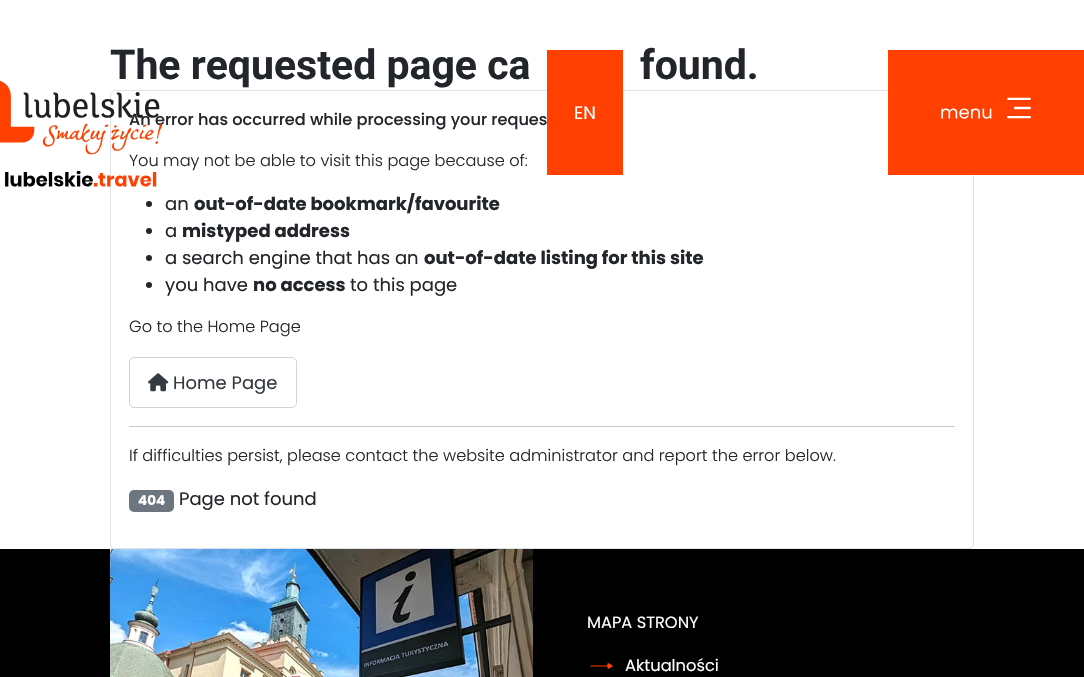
void draw(SkCanvas* c) {
SkPaint p;
p.setAntiAlias(true);
auto F=[&](const char* family, int weight, float size, bool italic = false){SkFontStyle style(weight, SkFontStyle::kNormal_Width,italic ? SkFontStyle::kItalic_Slant : SkFontStyle::kUpright_Slant);SkFont result(fontMgr->matchFamilyStyle(family, style), size);result.setSubpixel(true);return result;};
auto T=[&](const char* s, float x, float y, const SkFont& font){c->drawString(s, x, y, font, p);};
auto R=[&](float x, float y, float w, float h){c->drawRect(SkRect::MakeXYWH(x, y, w, h), p);};
auto Q=[&](float x, float y, float w, float h, float radius){c->drawRoundRect(SkRect::MakeXYWH(x, y, w, h), radius, radius, p);};
auto I=[&](const char* path, float x, float y, float w, float h){auto image = SkImages::DeferredFromEncodedData(SkData::MakeFromFileName(path));c->drawImageRect(image, SkRect::MakeXYWH(x, y, w, h), SkSamplingOptions());};
c->clear(0xffffffff);
auto f1 = F("Roboto",700,41);
p.setColor(0xff22262a);
T("The requested page ca",110,79,f1);
T("found.",640,79,f1);
p.setStroke(true);
p.setStrokeWidth(1);
p.setColor(0xffdfe3e7);
c->drawRoundRect(SkRect::MakeXYWH(110.5,90.5,863,458),4.5,4.5,p);
auto f2 = F("Poppins",500,16.15);
p.setStroke(false);
p.setColor(0xff22262a);
T("An error has occurred while processing your reques",129,125,f2);
auto f3 = F("Poppins",300,16.15);
T("You may not be able to visit this page because of:",129,166,f3);
c->drawCircle(149,204,3,p);
auto f4 = F("Poppins",400,18);
T("an",165,210,f4);
auto f5 = F("Poppins",700,18);
T("out-of-date bookmark/favourite",194,210,f5);
c->drawCircle(149,231,3,p);
T("a",165,237,f4);
T("mistyped address",182,237,f5);
c->drawCircle(149,258,3,p);
T("a search engine that has an",165,264,f4);
T("out-of-date listing for this site",424,264,f5);
c->drawCircle(149,285,3,p);
T("you have",165,291,f4);
T("no access",253,291,f5);
T("to this page",350,291,f4);
T("Go to the Home Page",129,332,f3);
p.setStroke(true);
p.setColor(0xffced4da);
c->drawRoundRect(SkRect::MakeXYWH(129.5,357.5,167,50),4.5,4.5,p);
I("1.png",148,373,21,19);
p.setStroke(false);
p.setColor(0xff353b41);
T("Home Page",173,389,f4);
p.setColor(0xffc8c9ca);
R(129,426,826,1);
p.setColor(0xff22262a);
T("If difficulties persist, please contact the website administrator and report the error below.",129,461,f3);
p.setColor(0xff6d757e);
Q(129,490,45,22,5);
auto f6 = F("Poppins",700,13.5);
p.setColor(0xffffffff);
T("404",138,505,f6);
p.setColor(0xff22262a);
T("Page not found",179,505,f4);
I("2.png",0,80,162,107);
p.setColor(0xffff4000);
R(547,50,76,125);
p.setColor(0xffffffff);
T("EN",574,119,f4);
p.setColor(0xffff4000);
R(888,50,196,125);
I("3.png",941,97,90,22);
p.setColor(0xff000000);
R(0,549,1084,128);
I("4.png",110,549,423,128);
auto f7 = F("Poppins",400,16.25);
p.setColor(0xffffffff);
T("MAPA STRONY",587,628,f7);
I("5.png",590,663,23,6);
T("Aktualności",625,671,f7);
}
